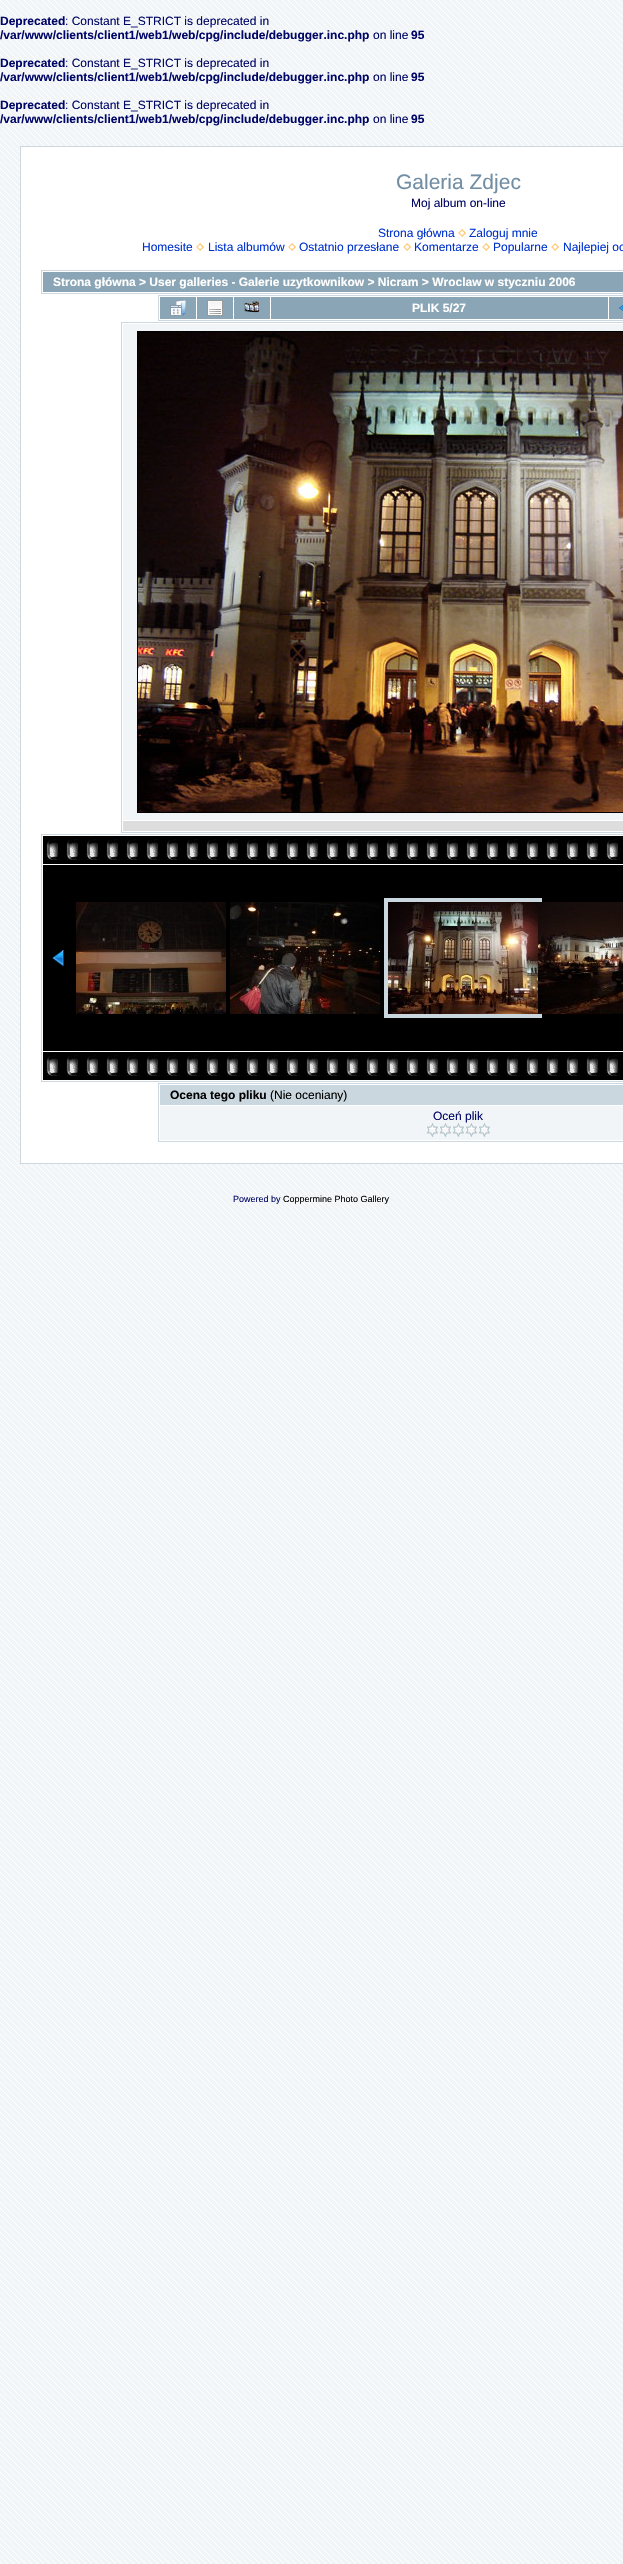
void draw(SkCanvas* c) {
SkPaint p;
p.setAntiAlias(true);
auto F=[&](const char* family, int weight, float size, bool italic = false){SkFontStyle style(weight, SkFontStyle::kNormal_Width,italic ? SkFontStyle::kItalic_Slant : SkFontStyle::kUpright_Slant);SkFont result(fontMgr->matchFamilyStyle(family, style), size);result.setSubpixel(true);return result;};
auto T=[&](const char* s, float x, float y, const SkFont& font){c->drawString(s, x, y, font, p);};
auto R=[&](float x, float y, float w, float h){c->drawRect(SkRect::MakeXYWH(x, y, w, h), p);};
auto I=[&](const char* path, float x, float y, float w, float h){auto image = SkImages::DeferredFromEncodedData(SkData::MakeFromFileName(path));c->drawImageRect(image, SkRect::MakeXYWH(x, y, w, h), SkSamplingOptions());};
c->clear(0xfff2f5f7);
I("1.png",0,0,623,2564);
auto f1 = F("Liberation Sans",700,12);
p.setColor(0xff000666);
T("Deprecated",0,25,f1);
auto f2 = F("Liberation Sans",400,12);
T(": Constant E_STRICT is deprecated in",65,25,f2);
T("/var/www/clients/client1/web1/web/cpg/include/debugger.inc.php",0,39,f1);
T("on line",373,39,f2);
T("95",411,39,f1);
T("Deprecated",0,67,f1);
T(": Constant E_STRICT is deprecated in",65,67,f2);
T("/var/www/clients/client1/web1/web/cpg/include/debugger.inc.php",0,81,f1);
T("on line",373,81,f2);
T("95",411,81,f1);
T("Deprecated",0,109,f1);
T(": Constant E_STRICT is deprecated in",65,109,f2);
T("/var/www/clients/client1/web1/web/cpg/include/debugger.inc.php",0,123,f1);
T("on line",373,123,f2);
T("95",411,123,f1);
p.setColor(0xffffffff);
c->drawRect(SkRect::MakeXYWH(20.5,146.5,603,1017),p);
p.setStroke(true);
p.setStrokeWidth(1);
p.setColor(0xffccd7e0);
c->drawRect(SkRect::MakeXYWH(20.5,146.5,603,1017),p);
auto f3 = F("Liberation Sans",400,21);
p.setStroke(false);
p.setColor(0xff718ea5);
T("Galeria Zdjec",396,189,f3);
p.setColor(0xff000666);
T("Moj album on-line",411,207,f2);
p.setColor(0xff0033cc);
T("Strona główna",378,237,f2);
I("2.png",458,229,8,8);
T("Zaloguj mnie",469,237,f2);
T("Homesite",142,251,f2);
I("2.png",196,243,8,8);
T("Lista albumów",208,251,f2);
I("2.png",288,243,8,8);
T("Ostatnio przesłane",299,251,f2);
I("2.png",403,243,8,8);
T("Komentarze",414,251,f2);
I("2.png",482,243,8,8);
T("Popularne",493,251,f2);
I("2.png",551,243,8,8);
T("Najlepiej oc",563,251,f2);
p.setStroke(true);
p.setColor(0xffccd7e0);
c->drawRect(SkRect::MakeXYWH(41.5,270.5,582,23),p);
p.setStroke(false);
p.setColor(0xff8aa5b5);
R(43,272,580,20);
p.setColor(0xffffffff);
T("Strona główna > User galleries - Galerie uzytkownikow > Nicram > Wroclaw w styczniu 2006",53,286,f1);
p.setStroke(true);
p.setColor(0xffccd7e0);
c->drawRect(SkRect::MakeXYWH(158.5,295.5,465,25),p);
p.setStroke(false);
p.setColor(0xff8aa5b5);
R(160,297,36,22);
I("3.png",170,300,16,16);
R(197,297,36,22);
I("4.png",207,300,16,16);
R(234,297,36,22);
I("5.png",244,301,16,12);
R(271,297,337,22);
p.setColor(0xffffffff);
T("PLIK 5/27",412,312,f1);
p.setColor(0xff8aa5b5);
R(609,297,14,22);
I("6.png",619,305,4,6);
p.setStroke(true);
p.setColor(0xffccd7e0);
c->drawRect(SkRect::MakeXYWH(121.5,322.5,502,510),p);
p.setStroke(false);
p.setColor(0xfff2f5f7);
R(123,324,500,496);
p.setStroke(true);
p.setColor(0xff000000);
c->drawRect(SkRect::MakeXYWH(137.5,331.5,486,481),p);
I("7.png",138,332,485,480);
p.setStroke(false);
p.setColor(0xffdddddd);
R(123,821,500,10);
p.setStroke(true);
p.setColor(0xffccd7e0);
c->drawRect(SkRect::MakeXYWH(41.5,834.5,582,247),p);
p.setStroke(false);
p.setColor(0xff000000);
R(43,836,580,28);
I("8.png",46,836,574,24);
R(43,865,580,186);
I("9.png",52,950,12,16);
I("10.png",76,902,150,112);
I("11.png",230,902,150,112);
p.setStroke(true);
p.setStrokeWidth(4);
p.setColor(0xffcbd7de);
c->drawRect(SkRect::MakeXYWH(386,900,154,116),p);
I("12.png",388,902,150,112);
I("13.png",538,902,85,112);
p.setStroke(false);
p.setColor(0xff000000);
R(43,1052,580,28);
I("8.png",46,1052,574,24);
p.setStroke(true);
p.setStrokeWidth(1);
p.setColor(0xffccd7e0);
c->drawRect(SkRect::MakeXYWH(158.5,1083.5,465,58),p);
p.setStroke(false);
p.setColor(0xffcbd7de);
R(160,1085,463,20);
p.setColor(0xff000000);
T("Ocena tego pliku",170,1099,f1);
T("(Nie oceniany)",270,1099,f2);
p.setColor(0xfff2f5f7);
R(160,1106,463,34);
p.setColor(0xff000666);
T("Oceń plik",433,1120,f2);
I("14.png",426,1123,13,14);
I("14.png",439,1123,13,14);
I("14.png",452,1123,13,14);
I("14.png",465,1123,13,14);
I("14.png",478,1123,13,14);
auto f4 = F("Liberation Sans",400,9);
T("Powered by",233,1202,f4);
p.setColor(0xff000000);
T("Coppermine Photo Gallery",283,1202,f4);
}
